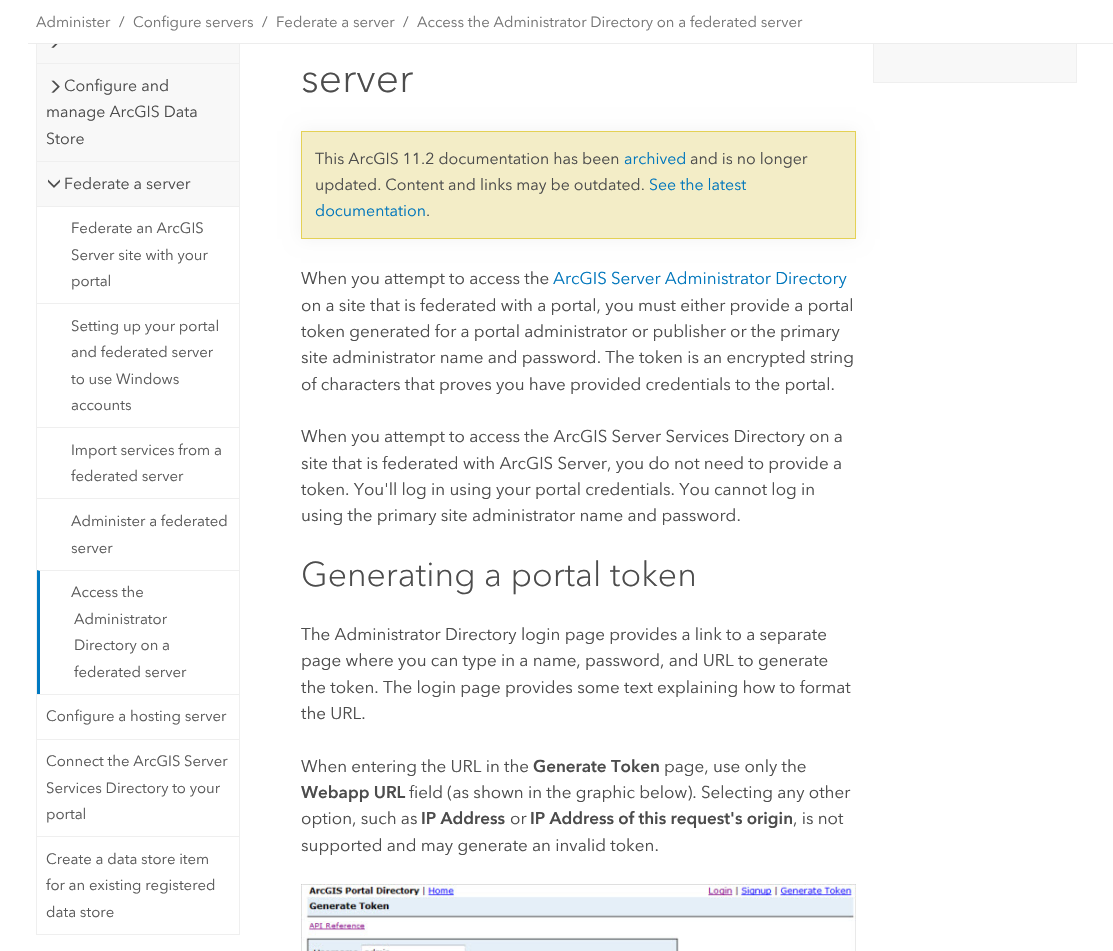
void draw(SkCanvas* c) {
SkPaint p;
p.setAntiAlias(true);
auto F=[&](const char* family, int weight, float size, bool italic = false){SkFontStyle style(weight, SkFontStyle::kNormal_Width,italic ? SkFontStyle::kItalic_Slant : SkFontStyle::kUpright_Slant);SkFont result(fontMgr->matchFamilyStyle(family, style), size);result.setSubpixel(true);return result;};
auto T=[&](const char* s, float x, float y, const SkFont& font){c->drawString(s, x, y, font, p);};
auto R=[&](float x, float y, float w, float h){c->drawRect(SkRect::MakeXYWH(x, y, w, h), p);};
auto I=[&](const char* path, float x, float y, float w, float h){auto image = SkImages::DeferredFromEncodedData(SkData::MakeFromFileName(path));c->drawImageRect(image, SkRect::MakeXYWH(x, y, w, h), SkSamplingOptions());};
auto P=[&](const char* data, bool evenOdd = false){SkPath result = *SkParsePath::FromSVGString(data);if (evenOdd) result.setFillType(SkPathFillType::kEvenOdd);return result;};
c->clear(0xffffffff);
p.setColor(0xfff8f8f8);
R(874,44,202,38);
p.setStroke(true);
p.setStrokeWidth(1);
p.setColor(0xffefefef);
c->drawRect(SkRect::MakeXYWH(873.5,-.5,203,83),p);
p.setStroke(false);
p.setColor(0xffffffff);
R(873,0,204,43);
p.setColor(0xffededed);
R(28,43,1085,1);
auto f1 = F("Avenir Next",400,14.9);
p.setColor(0xff757575);
T("Administer",36,27,f1);
p.setColor(0xff6e6e6e);
T("/",119,27,f1);
p.setColor(0xff757575);
T("Configure servers",133,27,f1);
p.setColor(0xff6e6e6e);
T("/",262,27,f1);
p.setColor(0xff757575);
T("Federate a server",276,27,f1);
p.setColor(0xff6e6e6e);
T("/",403,27,f1);
p.setColor(0xff757575);
T("Access the Administrator Directory on a federated server",417,27,f1);
p.setColor(0xffefefef);
R(239,44,1,891);
R(36,934,204,1);
R(36,44,1,891);
p.setColor(0xfff8f8f8);
R(37,44,202,19);
I("1.png",51,44,7,4);
R(37,64,202,97);
p.setColor(0xffefefef);
R(37,63,202,1);
I("2.png",51,80,9,13);
auto f2 = F("Avenir Next",400,15.9);
p.setColor(0xff4c4c4c);
T("Configure and",64,91,f2);
T("manage ArcGIS Data",46,117,f2);
T("Store",46,144,f2);
p.setColor(0xfff8f8f8);
R(37,162,202,44);
p.setColor(0xffefefef);
R(37,161,202,1);
I("3.png",48,179,12,9);
p.setColor(0xff4c4c4c);
T("Federate a server",64,189,f2);
p.setColor(0xffefefef);
R(37,206,202,1);
p.setColor(0xff595959);
T("Federate an ArcGIS",71,233,f1);
T("Server site with your",71,260,f1);
T("portal",71,286,f1);
p.setColor(0xffefefef);
R(37,303,202,1);
p.setColor(0xff595959);
T("Setting up your portal",71,331,f1);
T("and federated server",71,357,f1);
T("to use Windows",71,384,f1);
T("accounts",71,410,f1);
p.setColor(0xffefefef);
R(37,427,202,1);
p.setColor(0xff595959);
T("Import services from a",71,455,f1);
T("federated server",71,481,f1);
p.setColor(0xffefefef);
R(37,498,202,1);
p.setColor(0xff595959);
T("Administer a federated",71,526,f1);
T("server",71,553,f1);
p.setColor(0xffefefef);
c->drawPath(P("M37 570h202v1h-199z"),p);
p.setColor(0xff0079c1);
c->drawPath(P("M37 694v-124l3 1v123z"),p);
p.setColor(0xff595959);
T("Access the",71,597,f1);
T("Administrator",74,624,f1);
T("Directory on a",74,650,f1);
T("federated server",74,677,f1);
p.setColor(0xffefefef);
R(37,694,202,1);
p.setColor(0xff595959);
T("Configure a hosting server",46,721,f1);
p.setColor(0xffefefef);
R(37,739,202,1);
p.setColor(0xff595959);
T("Connect the ArcGIS Server",46,766,f1);
T("Services Directory to your",46,793,f1);
T("portal",46,819,f1);
p.setColor(0xffefefef);
R(37,836,202,1);
p.setColor(0xff595959);
T("Create a data store item",46,864,f1);
T("for an existing registered",46,890,f1);
T("data store",46,917,f1);
auto f3 = F("Avenir Next",300,41);
p.setColor(0xff4c4c4c);
T("server",301,92,f3);
p.setColor(0x0d000000);
p.setMaskFilter(SkMaskFilter::MakeBlur(kNormal_SkBlurStyle, 8));
c->drawRect(SkRect::MakeXYWH(301,131,555,108),p);
p.setMaskFilter(nullptr);
p.setColor(0xfff3edc7);
c->drawRect(SkRect::MakeXYWH(301.5,131.5,554,107),p);
p.setStroke(true);
p.setColor(0xffe4d154);
c->drawRect(SkRect::MakeXYWH(301.5,131.5,554,107),p);
p.setStroke(false);
p.setColor(0xff4c4c4c);
T("This ArcGIS 11.2 documentation has been",315,164,f2);
p.setColor(0xff0076bc);
T("archived",624,164,f2);
p.setColor(0xff4c4c4c);
T("and is no longer",690,164,f2);
T("updated. Content and links may be outdated.",315,190,f2);
p.setColor(0xff0076bc);
T("See the latest",649,190,f2);
T("documentation",315,216,f2);
p.setColor(0xff4c4c4c);
T(".",426,216,f2);
auto f4 = F("Avenir Next",400,17);
T("When you attempt to access the",301,284,f4);
p.setColor(0xff0076bc);
T("ArcGIS Server Administrator Directory",553,284,f4);
p.setColor(0xff4c4c4c);
T("on a site that is federated with a portal, you must either provide a portal",301,311,f4);
T("token generated for a portal administrator or publisher or the primary",301,337,f4);
T("site administrator name and password. The token is an encrypted string",301,363,f4);
T("of characters that proves you have provided credentials to the portal.",301,390,f4);
T("When you attempt to access the ArcGIS Server Services Directory on a",301,442,f4);
T("site that is federated with ArcGIS Server, you do not need to provide a",301,469,f4);
T("token. You'll log in using your portal credentials. You cannot log in",301,495,f4);
T("using the primary site administrator name and password.",301,521,f4);
auto f5 = F("Avenir Next",300,34);
T("Generating a portal token",301,586,f5);
T("The Administrator Directory login page provides a link to a separate",301,640,f4);
T("page where you can type in a name, password, and URL to generate",301,666,f4);
T("the token. The login page provides some text explaining how to format",301,693,f4);
T("the URL.",301,719,f4);
T("When entering the URL in the",301,772,f4);
auto f6 = F("Avenir Next",700,17);
T("Generate Token",533,772,f6);
T("page, use only the",664,772,f4);
T("Webapp URL",301,798,f6);
T("field (as shown in the graphic below). Selecting any other",409,798,f4);
T("option, such as",301,824,f4);
T("IP Address",421,824,f6);
T("or",510,824,f4);
T("IP Address of this request's origin",530,824,f6);
T(", is not",793,824,f4);
T("supported and may generate an invalid token.",301,851,f4);
I("4.png",301,884,555,67);
}
